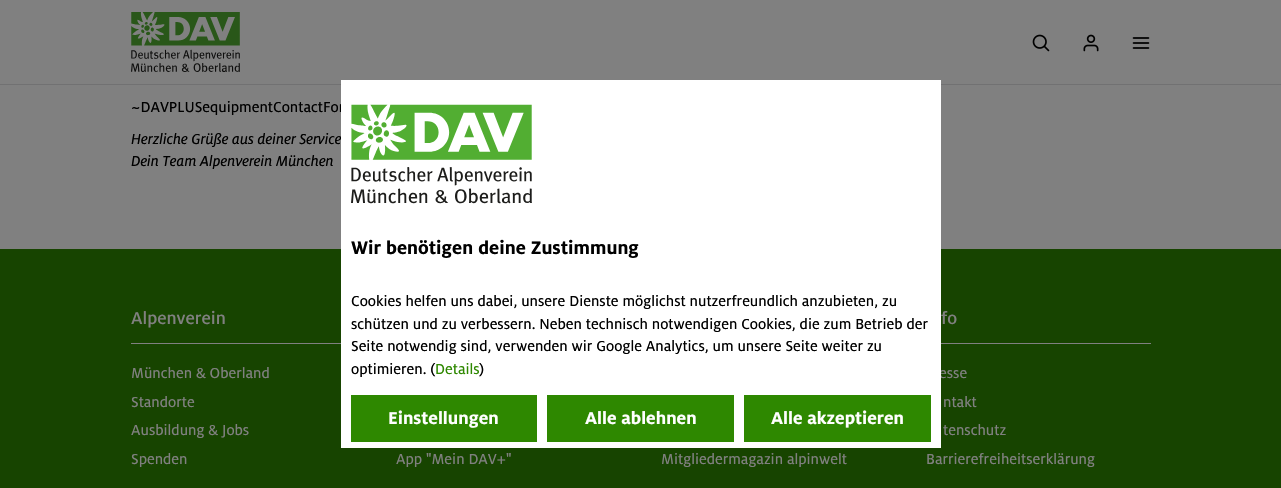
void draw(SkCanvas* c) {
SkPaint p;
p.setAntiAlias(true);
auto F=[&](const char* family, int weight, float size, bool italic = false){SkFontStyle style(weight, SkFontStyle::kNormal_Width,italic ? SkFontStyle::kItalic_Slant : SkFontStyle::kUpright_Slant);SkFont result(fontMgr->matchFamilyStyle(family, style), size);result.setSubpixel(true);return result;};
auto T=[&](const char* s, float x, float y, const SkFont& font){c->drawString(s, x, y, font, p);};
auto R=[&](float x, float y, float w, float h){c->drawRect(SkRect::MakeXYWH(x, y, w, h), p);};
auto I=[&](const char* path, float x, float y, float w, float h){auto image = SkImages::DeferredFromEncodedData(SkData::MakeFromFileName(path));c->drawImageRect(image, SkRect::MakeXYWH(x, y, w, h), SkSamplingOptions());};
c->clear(0xff808080);
p.setColor(0xff717172);
R(0,84,1281,1);
I("1.png",131,12,109,60);
I("2.png",1032,34,18,18);
I("3.png",1083,34,16,18);
I("4.png",1132,37,18,12);
auto f1 = F("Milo",400,16);
p.setColor(0xff000000);
T("~DAVPLUSequipmentContactFor",131,112,f1);
auto f2 = F("Milo",400,16,true);
T("Herzliche Grüße aus deiner Service",131,144,f2);
T("Dein Team Alpenverein München",131,166,f2);
p.setColor(0xff174400);
R(0,249,1281,239);
p.setColor(0xff808080);
T("esse",939,378,f1);
p.setColor(0xffffffff);
R(341,80,600,368);
I("5.png",351,104,181,100);
auto f3 = F("Milo",700,20);
p.setColor(0xff000000);
T("Wir benötigen deine Zustimmung",351,254,f3);
T("Cookies helfen uns dabei, unsere Dienste möglichst nutzerfreundlich anzubieten, zu",351,306,f1);
T("schützen und zu verbessern. Neben technisch notwendigen Cookies, die zum Betrieb der",351,329,f1);
T("Seite notwendig sind, verwenden wir Google Analytics, um unsere Seite weiter zu",351,351,f1);
T("optimieren. (",351,374,f1);
p.setColor(0xff2e8800);
T("Details",435,374,f1);
p.setColor(0xff000000);
T(")",479,374,f1);
p.setColor(0xff2e8800);
R(351,395,186,47);
auto f4 = F("Milo",700,19);
p.setColor(0xffffffff);
T("Einstellungen",388,424,f4);
p.setColor(0xff2e8800);
R(547,395,187,47);
p.setColor(0xffffffff);
T("Alle ablehnen",585,424,f4);
p.setColor(0xff2e8800);
R(744,395,187,47);
p.setColor(0xffffffff);
T("Alle akzeptieren",771,424,f4);
p.setColor(0xff808080);
R(131,343,210,1);
auto f5 = F("Milo",500,19);
T("Alpenverein",131,324,f5);
T("München & Oberland",131,378,f1);
T("Standorte",131,407,f1);
T("Ausbildung & Jobs",131,435,f1);
T("Spenden",131,464,f1);
T("App \"Mein DAV+\"",396,464,f1);
T("Mitgliedermagazin alpinwelt",661,464,f1);
R(941,343,210,1);
T("fo",941,324,f5);
T("ntakt",943,407,f1);
T("tenschutz",943,435,f1);
T("Barrierefreiheitserklärung",926,464,f1);
}
